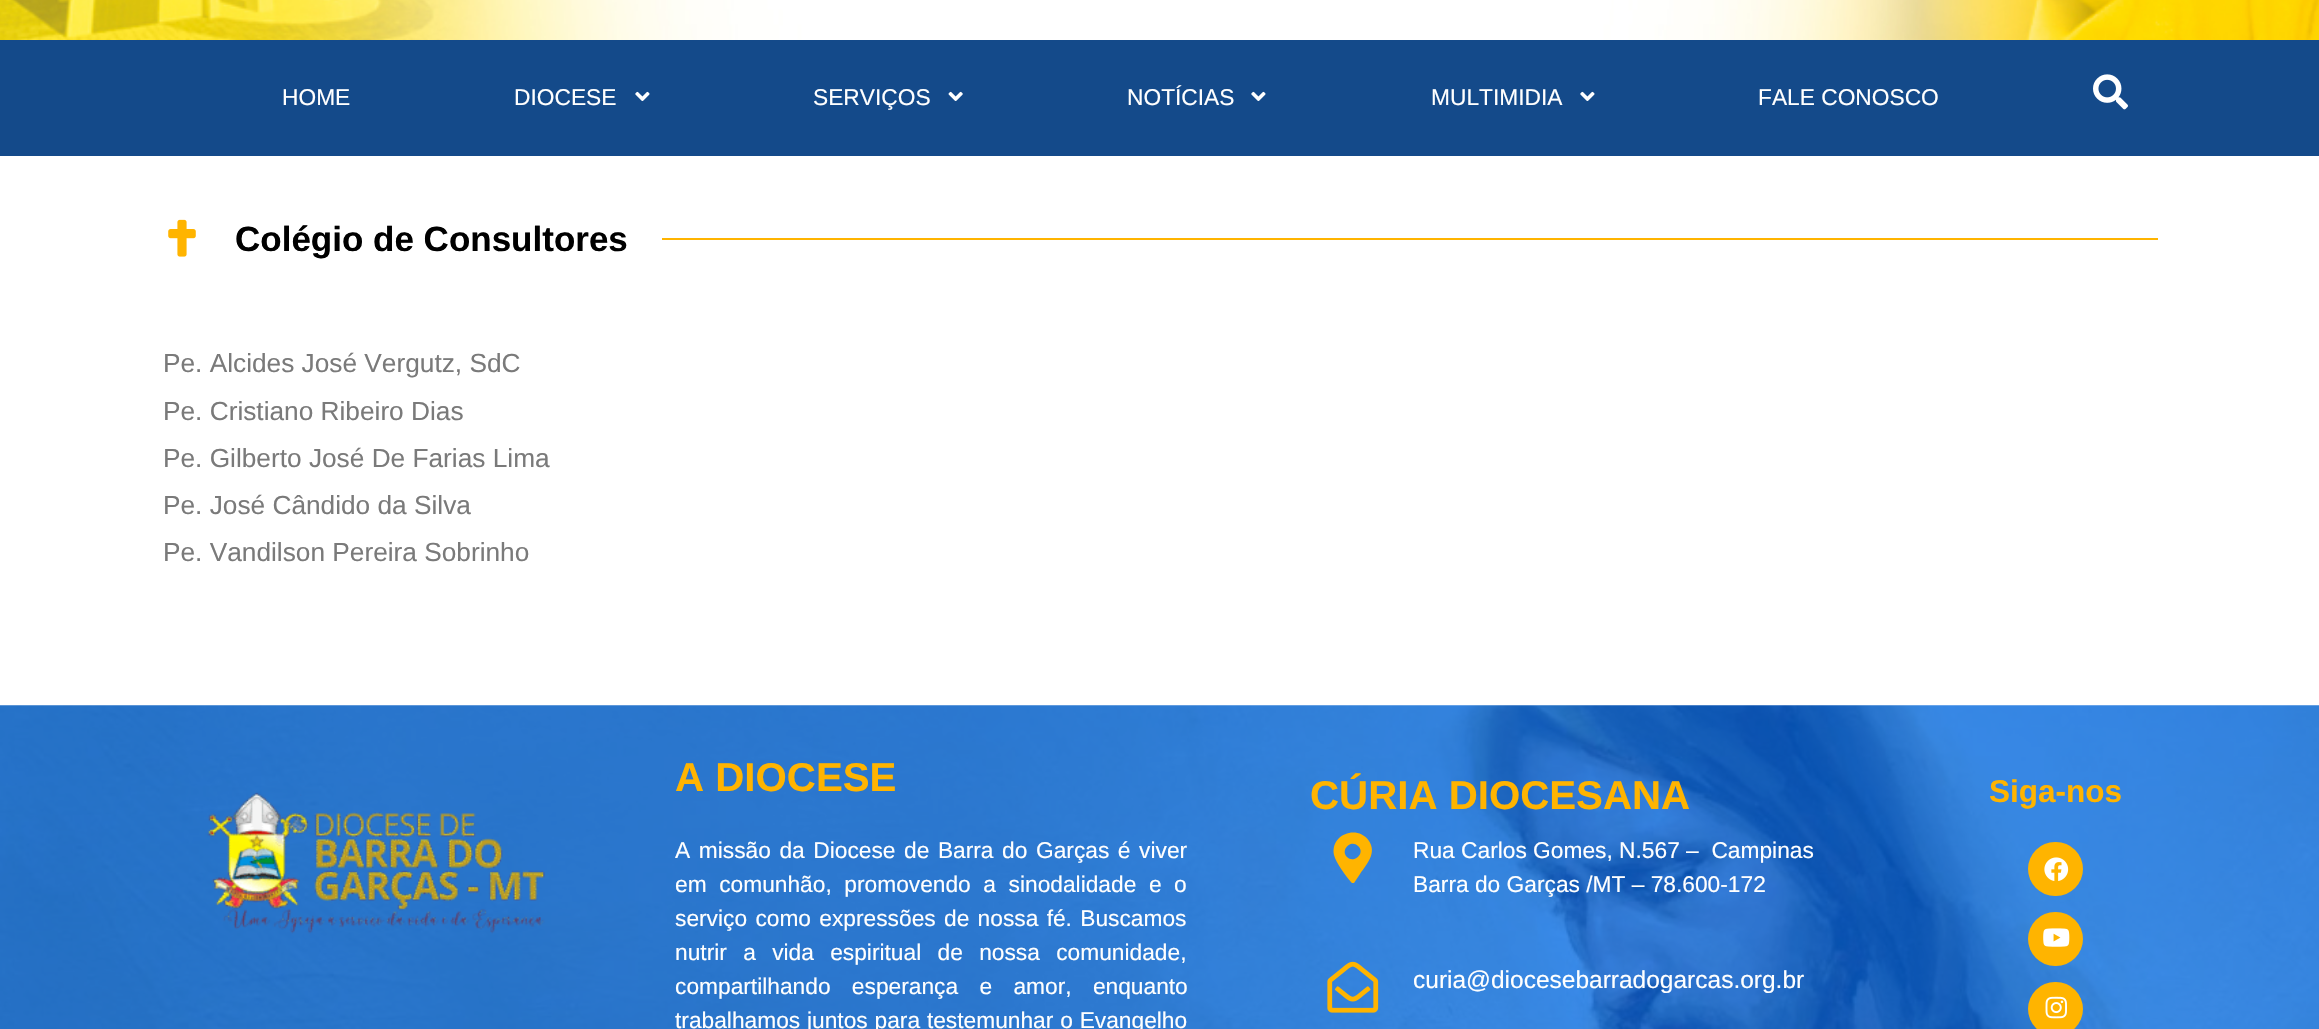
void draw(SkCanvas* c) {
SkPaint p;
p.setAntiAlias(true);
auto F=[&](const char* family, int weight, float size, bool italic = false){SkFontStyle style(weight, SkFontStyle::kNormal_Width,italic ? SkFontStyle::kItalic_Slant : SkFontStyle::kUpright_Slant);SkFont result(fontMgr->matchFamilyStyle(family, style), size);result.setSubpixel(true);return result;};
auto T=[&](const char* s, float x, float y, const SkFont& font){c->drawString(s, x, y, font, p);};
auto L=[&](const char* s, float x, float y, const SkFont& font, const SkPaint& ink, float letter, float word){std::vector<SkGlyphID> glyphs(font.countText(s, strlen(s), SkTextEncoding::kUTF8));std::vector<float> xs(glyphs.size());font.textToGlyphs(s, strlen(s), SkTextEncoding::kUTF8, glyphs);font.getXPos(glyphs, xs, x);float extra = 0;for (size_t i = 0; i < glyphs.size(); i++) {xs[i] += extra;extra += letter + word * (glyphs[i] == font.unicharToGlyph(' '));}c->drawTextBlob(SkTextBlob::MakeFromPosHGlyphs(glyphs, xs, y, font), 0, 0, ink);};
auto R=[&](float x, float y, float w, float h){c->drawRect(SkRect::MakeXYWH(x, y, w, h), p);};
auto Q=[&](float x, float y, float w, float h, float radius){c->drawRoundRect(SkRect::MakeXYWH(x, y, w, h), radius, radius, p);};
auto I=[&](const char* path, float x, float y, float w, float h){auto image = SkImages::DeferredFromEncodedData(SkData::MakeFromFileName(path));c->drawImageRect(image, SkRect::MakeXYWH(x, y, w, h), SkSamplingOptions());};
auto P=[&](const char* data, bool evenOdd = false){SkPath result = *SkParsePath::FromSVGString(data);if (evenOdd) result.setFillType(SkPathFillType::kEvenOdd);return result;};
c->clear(0xffffffff);
I("1.png",0,0,2319,40);
p.setColor(0xff144a8a);
R(0,40,2319,116);
auto f1 = F("Liberation Sans",400,22.75);
p.setColor(0xffffffff);
T("HOME",282,105,f1);
T("DIOCESE",514,105,f1);
I("2.png",635,91,15,10);
T("SERVIÇOS",813,105,f1);
I("3.png",948,91,15,10);
T("NOTÍCIAS",1127,105,f1);
I("2.png",1251,91,15,10);
T("MULTIMIDIA",1431,105,f1);
I("2.png",1580,91,15,10);
T("FALE CONOSCO",1758,105,f1);
I("4.png",2093,74,35,36);
I("5.png",168,219,28,38);
auto f2 = F("Liberation Sans",700,35);
p.setColor(0xff000000);
T("Colégio de Consultores",235,251,f2);
p.setColor(0xffffb400);
R(662,238,1496,2);
auto f3 = F("Liberation Sans",400,26.25);
p.setColor(0xff7a7a7a);
T("Pe. Alcides José Vergutz, SdC",163,372,f3);
T("Pe. Cristiano Ribeiro Dias",163,420,f3);
T("Pe. Gilberto José De Farias Lima",163,467,f3);
T("Pe. José Cândido da Silva",163,514,f3);
T("Pe. Vandilson Pereira Sobrinho",163,561,f3);
I("6.png",0,705,2319,324);
I("7.png",207,792,338,142);
auto f4 = F("Liberation Sans",700,40.25);
p.setColor(0xffffb400);
T("A DIOCESE",675,791,f4);
p.setColor(0xffffffff);
L("A missão da Diocese de Barra do Garças é viver",675,858,f1,p,0,2.25);
L("em comunhão, promovendo a sinodalidade e o",675,892,f1,p,0,6.25);
L("serviço como expressões de nossa fé. Buscamos",675,926,f1,p,0,2);
L("nutrir a vida espiritual de nossa comunidade,",675,960,f1,p,0,10);
L("compartilhando esperança e amor, enquanto",675,994,f1,p,0,15);
L("trabalhamos juntos para testemunhar o Evangelho",675,1028,f1,p,0,.5);
p.setColor(0xffffb400);
T("CÚRIA DIOCESANA",1310,809,f4);
c->drawPath(P("M1351 882c-5-6-15-19-17-27c-4-20 23-31 35-14c8 12-2 23-9 33l-6 9c-1 0-3 0-3-1zm-4-25c7 7 19-4 11-11c-7-7-18 4-11 11z"),p);
p.setColor(0xffffffff);
T("Rua Carlos Gomes, N.567 –  Campinas",1413,858,f1);
T("Barra do Garças /MT – 78.600-172",1413,892,f1);
I("8.png",1327,961,52,52);
auto f5 = F("Liberation Sans",400,24.5);
T("curia@diocesebarradogarcas.org.br",1413,988,f5);
auto f6 = F("Liberation Sans",700,31.5);
p.setColor(0xffffb400);
T("Siga-nos",1989,802,f6);
Q(2028,842,55,54,27);
I("9.png",2044,857,25,24);
Q(2028,912,55,54,27);
I("10.png",2043,928,27,19);
Q(2028,982,55,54,27);
I("11.png",2045,996,22,23);
}
